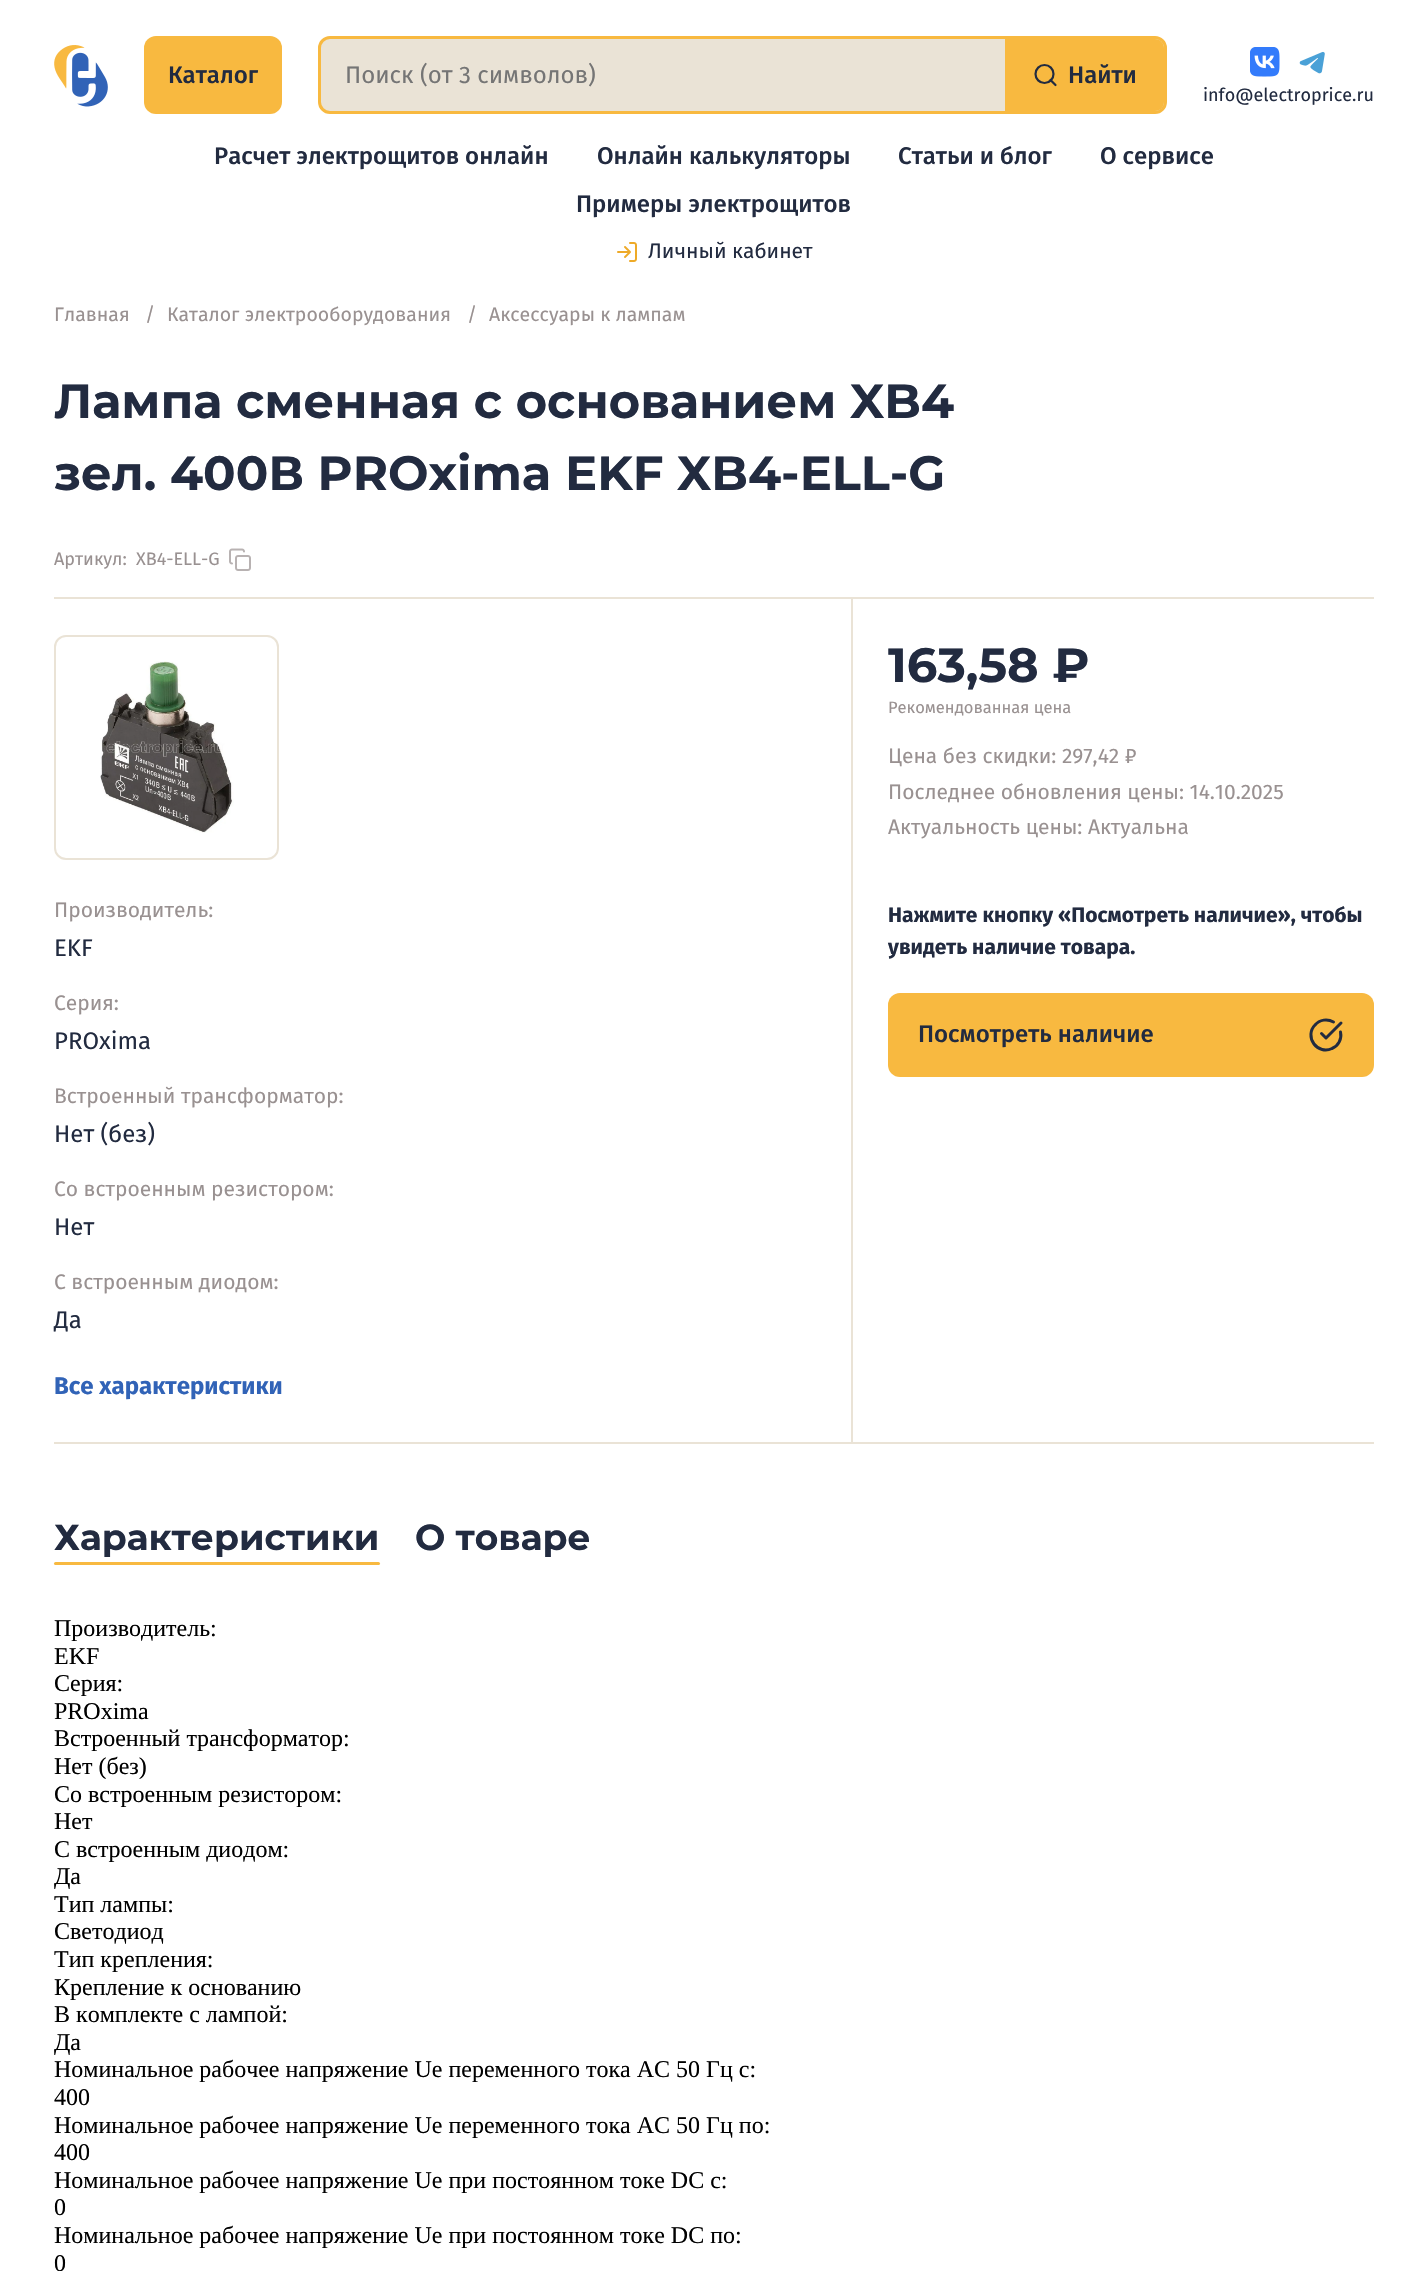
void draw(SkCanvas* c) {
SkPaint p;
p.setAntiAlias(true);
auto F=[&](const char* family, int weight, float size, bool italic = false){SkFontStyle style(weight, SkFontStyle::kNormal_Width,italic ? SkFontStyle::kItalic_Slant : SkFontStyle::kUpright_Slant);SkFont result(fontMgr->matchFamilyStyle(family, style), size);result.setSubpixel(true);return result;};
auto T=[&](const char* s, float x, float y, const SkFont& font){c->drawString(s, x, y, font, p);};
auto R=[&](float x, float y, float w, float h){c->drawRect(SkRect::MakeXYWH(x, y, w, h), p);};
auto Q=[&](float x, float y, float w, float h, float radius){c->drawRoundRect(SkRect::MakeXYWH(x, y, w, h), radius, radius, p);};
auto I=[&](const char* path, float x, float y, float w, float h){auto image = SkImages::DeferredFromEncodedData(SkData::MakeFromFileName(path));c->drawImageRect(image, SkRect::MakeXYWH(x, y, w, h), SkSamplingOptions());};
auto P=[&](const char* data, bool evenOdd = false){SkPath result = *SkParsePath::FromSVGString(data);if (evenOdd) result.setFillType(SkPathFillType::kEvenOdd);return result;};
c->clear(0xffffffff);
I("1.png",54,45,54,62);
p.setColor(0xfff8b940);
Q(144,36,138,78,12);
auto f1 = F("Fira Sans",500,24);
p.setColor(0xff222b40);
T("Каталог",168,83,f1);
p.setColor(0xffeae3d6);
c->drawRoundRect(SkRect::MakeXYWH(319.5,37.5,846,75),10.5,10.5,p);
p.setStroke(true);
p.setStrokeWidth(3);
p.setColor(0xfff8b940);
c->drawRoundRect(SkRect::MakeXYWH(319.5,37.5,846,75),10.5,10.5,p);
auto f2 = F("Fira Sans",400,24);
p.setStroke(false);
p.setColor(0xff757575);
T("Поиск (от 3 символов)",345,83,f2);
p.setColor(0xfff8b940);
c->drawPath(P("M1005 39h150c5 0 9 4 9 9v54c0 5-4 9-9 9h-150z"),p);
p.setStroke(true);
p.setStrokeWidth(2.2);
p.setStrokeCap(SkPaint::kRound_Cap);
p.setStrokeJoin(SkPaint::kRound_Join);
p.setColor(0xff222b40);
c->drawPath(P("M1055.5 85l-5-5"),p);
p.setStrokeCap(SkPaint::kButt_Cap);
p.setStrokeJoin(SkPaint::kMiter_Join);
c->drawCircle(1044.5,74,9,p);
p.setStroke(false);
T("Найти",1068,83,f1);
I("2.png",1250,47,30,30);
I("3.png",1299,51,26,23);
auto f3 = F("Fira Sans",400,18);
T("info@electroprice.ru",1203,101,f3);
T("Расчет электрощитов онлайн",214,164,f1);
T("Онлайн калькуляторы",597,164,f1);
T("Статьи и блог",898,164,f1);
T("О сервисе",1100,164,f1);
T("Примеры электрощитов",576,212,f1);
I("4.png",617,242,20,20);
auto f4 = F("Fira Sans",400,21);
T("Личный кабинет",648,258,f4);
auto f5 = F("Fira Sans",400,19.5);
p.setColor(0xff999191);
T("Главная",54,321,f5);
T("/",145,321,f5);
T("Каталог электрооборудования",167,321,f5);
T("/",467,321,f5);
T("Аксессуары к лампам",489,321,f5);
auto f6 = F("Montserrat",700,48);
p.setColor(0xff222b40);
T("Лампа сменная с основанием XB4",54,418,f6);
T("зел. 400В PROxima EKF XB4-ELL-G",54,490,f6);
p.setColor(0xff999191);
T("Артикул:",54,565,f3);
T("XB4-ELL-G",136,565,f3);
I("5.png",229,548,22,23);
p.setColor(0xffeae3d6);
R(54,597,1320,2);
R(54,1442,1320,2);
R(851,599,2,843);
p.setColor(0xff222b40);
T("163,58 ₽",888,682,f6);
auto f7 = F("Fira Sans",400,16.5);
p.setColor(0xff999191);
T("Рекомендованная цена",888,713,f7);
T("Цена без скидки: 297,42 ₽",888,763,f4);
T("Последнее обновления цены: 14.10.2025",888,799,f4);
T("Актуальность цены: Актуальна",888,834,f4);
auto f8 = F("Fira Sans",700,21);
p.setColor(0xff222b40);
T("Нажмите кнопку «Посмотреть наличие», чтобы",888,922,f8);
T("увидеть наличие товара.",888,954,f8);
p.setColor(0xfff8b940);
Q(888,993,486,84,12);
p.setColor(0xff222b40);
T("Посмотреть наличие",918,1042,f1);
p.setStroke(true);
p.setStrokeWidth(3);
p.setStrokeCap(SkPaint::kRound_Cap);
p.setStrokeJoin(SkPaint::kRound_Join);
c->drawPath(P("M1340.5 1032c1.5 7-2 14-8.5 16.5c-6.5 3-14 1-18-4.5c-4.5-6-4-14 1-19c4.5-5.5 12.5-6.5 18.5-3m-12 11.5l4.5 4.5l15-15"),p);
p.setStrokeWidth(2);
p.setStrokeCap(SkPaint::kButt_Cap);
p.setStrokeJoin(SkPaint::kMiter_Join);
p.setColor(0xffeae3d6);
c->drawRoundRect(SkRect::MakeXYWH(55,636,223,223),11,11,p);
I("6.png",100,661,134,172);
p.setStroke(false);
p.setColor(0xff999191);
T("Производитель:",54,917,f4);
p.setColor(0xff222b40);
T("EKF",54,956,f2);
p.setColor(0xff999191);
T("Серия:",54,1010,f4);
p.setColor(0xff222b40);
T("PROxima",54,1049,f2);
p.setColor(0xff999191);
T("Встроенный трансформатор:",54,1103,f4);
p.setColor(0xff222b40);
T("Нет (без)",54,1142,f2);
p.setColor(0xff999191);
T("Со встроенным резистором:",54,1196,f4);
p.setColor(0xff222b40);
T("Нет",54,1235,f2);
p.setColor(0xff999191);
T("С встроенным диодом:",54,1289,f4);
p.setColor(0xff222b40);
T("Да",54,1328,f2);
auto f9 = F("Fira Sans",700,24);
p.setColor(0xff3163b7);
T("Все характеристики",54,1394,f9);
auto f10 = F("Montserrat",700,36);
p.setColor(0xff222b40);
T("Характеристики",54,1550,f10);
p.setColor(0xfff8b940);
Q(54,1562,326,3,1.5);
p.setColor(0xff222b40);
T("О товаре",415,1550,f10);
auto f11 = F("Liberation Serif",400,24);
p.setColor(0xff000000);
T("Производитель:",54,1636,f11);
T("EKF",54,1664,f11);
T("Серия:",54,1691,f11);
T("PROxima",54,1719,f11);
T("Встроенный трансформатор:",54,1746,f11);
T("Нет (без)",54,1774,f11);
T("Со встроенным резистором:",54,1802,f11);
T("Нет",54,1829,f11);
T("С встроенным диодом:",54,1857,f11);
T("Да",54,1884,f11);
T("Тип лампы:",54,1912,f11);
T("Светодиод",54,1939,f11);
T("Тип крепления:",54,1967,f11);
T("Крепление к основанию",54,1995,f11);
T("В комплекте с лампой:",54,2022,f11);
T("Да",54,2050,f11);
T("Номинальное рабочее напряжение Ue переменного тока AC 50 Гц с:",54,2077,f11);
T("400",54,2105,f11);
T("Номинальное рабочее напряжение Ue переменного тока AC 50 Гц по:",54,2133,f11);
T("400",54,2160,f11);
T("Номинальное рабочее напряжение Ue при постоянном токе DC с:",54,2188,f11);
T("0",54,2215,f11);
T("Номинальное рабочее напряжение Ue при постоянном токе DC по:",54,2243,f11);
T("0",54,2271,f11);
}
